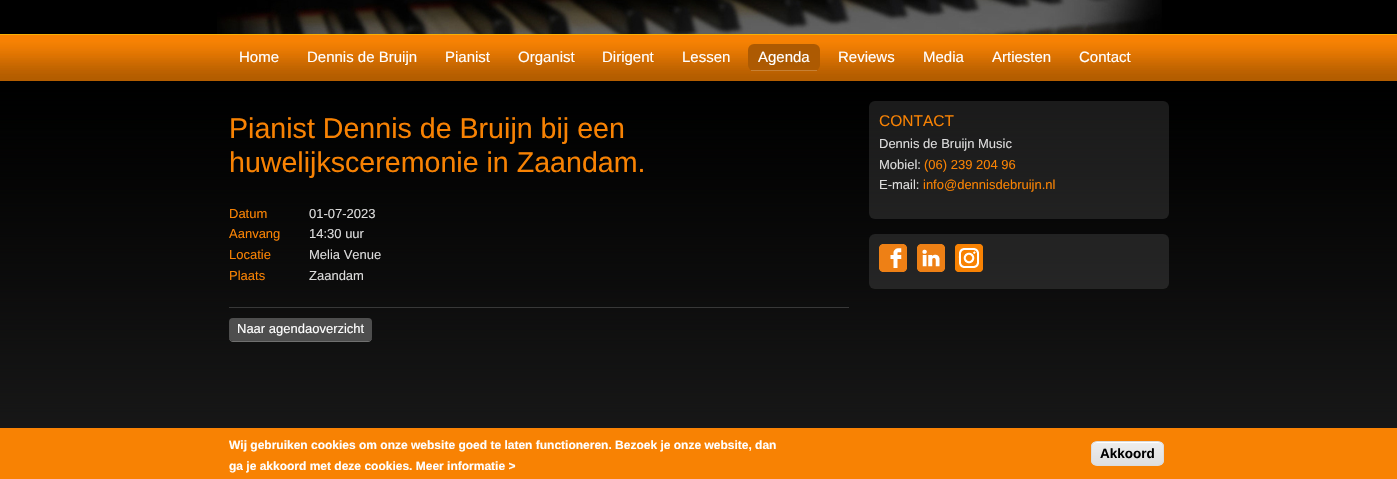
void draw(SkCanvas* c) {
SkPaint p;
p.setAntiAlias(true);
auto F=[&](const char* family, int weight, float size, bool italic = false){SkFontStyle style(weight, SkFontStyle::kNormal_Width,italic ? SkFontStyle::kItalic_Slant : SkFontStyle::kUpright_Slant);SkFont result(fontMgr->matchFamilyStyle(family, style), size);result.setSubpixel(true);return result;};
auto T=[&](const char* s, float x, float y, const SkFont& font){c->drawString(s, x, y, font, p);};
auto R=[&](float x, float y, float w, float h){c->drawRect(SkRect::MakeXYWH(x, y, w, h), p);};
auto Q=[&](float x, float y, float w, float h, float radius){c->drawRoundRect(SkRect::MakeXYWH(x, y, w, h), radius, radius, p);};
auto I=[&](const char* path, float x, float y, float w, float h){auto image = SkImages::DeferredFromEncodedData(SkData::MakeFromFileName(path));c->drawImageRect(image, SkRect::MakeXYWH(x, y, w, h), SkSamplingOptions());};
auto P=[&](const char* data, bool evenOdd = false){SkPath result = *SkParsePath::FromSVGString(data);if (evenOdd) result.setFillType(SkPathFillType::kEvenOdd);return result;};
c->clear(0xff000000);
I("1.png",217,0,945,34);
I("2.png",0,34,1397,47);
auto f1 = F("Liberation Sans",400,15);
p.setColor(0xffffffff);
T("Home",239,62,f1);
T("Dennis de Bruijn",307,62,f1);
T("Pianist",445,62,f1);
T("Organist",518,62,f1);
T("Dirigent",602,62,f1);
T("Lessen",682,62,f1);
p.setColor(0xffad5a02);
Q(748,44,72,27,6);
p.setColor(0xffc78034);
R(751,70,66,1);
p.setColor(0xffffffff);
T("Agenda",758,62,f1);
T("Reviews",838,62,f1);
T("Media",923,62,f1);
T("Artiesten",992,62,f1);
T("Contact",1079,62,f1);
I("3.png",0,81,1397,347);
auto f2 = F("Liberation Sans",400,28.6);
p.setColor(0xfff88203);
T("Pianist Dennis de Bruijn bij een",229,138,f2);
T("huwelijksceremonie in Zaandam.",229,172,f2);
auto f3 = F("Liberation Sans",400,13);
T("Datum",229,218,f3);
p.setColor(0xffdcdcdc);
T("01-07-2023",309,218,f3);
p.setColor(0xfff88203);
T("Aanvang",229,238,f3);
p.setColor(0xffdcdcdc);
T("14:30 uur",309,238,f3);
p.setColor(0xfff88203);
T("Locatie",229,259,f3);
p.setColor(0xffdcdcdc);
T("Melia Venue",309,259,f3);
p.setColor(0xfff88203);
T("Plaats",229,280,f3);
p.setColor(0xffdcdcdc);
T("Zaandam",309,280,f3);
p.setColor(0xff383838);
R(229,307,620,1);
p.setColor(0xff707070);
c->drawPath(P("M229 337v1c0 2 2 4 4 4h135c2 0 4-2 4-4v-1c0 2-2 4-4 4h-135c-2 0-4-2-4-4z"),p);
p.setColor(0xff4e4e4e);
Q(229,318,143,23,4);
p.setColor(0xffffffff);
T("Naar agendaoverzicht",237,333,f3);
p.setColor(0x1affffff);
Q(869,101,300,118,6);
auto f4 = F("Liberation Sans",400,15.5);
p.setColor(0xfff88203);
T("CONTACT",879,126,f4);
p.setColor(0xffdcdcdc);
T("Dennis de Bruijn Music",879,148,f3);
T("Mobiel:",879,169,f3);
p.setColor(0xfff88203);
T("(06) 239 204 96",924,169,f3);
p.setColor(0xffdcdcdc);
T("E-mail:",879,189,f3);
p.setColor(0xfff88203);
T("info@dennisdebruijn.nl",923,189,f3);
p.setColor(0x1affffff);
Q(869,234,300,55,6);
I("4.png",879,244,28,28);
I("5.png",917,244,28,28);
I("6.png",955,244,28,28);
p.setColor(0xfff88203);
R(0,428,1397,51);
auto f5 = F("Liberation Sans",700,12);
p.setColor(0xffffffff);
T("Wij gebruiken cookies om onze website goed te laten functioneren. Bezoek je onze website, dan",229,449,f5);
T("ga je akkoord met deze cookies. Meer informatie >",229,470,f5);
c->save();
c->clipPath(P("M1097 441h61c3.5 0 6 2.5 6 6v13c0 3.5-2.5 6-6 6h-61c-3.5 0-6-2.5-6-6v-13c0-3.5 2.5-6 6-6z"),true);
{
const SkColor colors[] = {0xffededed,0xffdfdfdf};
const float stops[] = {.05,1};
const SkPoint ends[] = {{1128,442}, {1128,465}};
p.setShader(SkGradientShader::MakeLinear(ends, colors, stops, 2, SkTileMode::kClamp));
p.setAlpha(255);
}
R(1091,442,73,23);
c->restore();
p.setShader(nullptr);
p.setColor(0xffffffff);
c->drawPath(P("M1097 443h61c3 0 5 2 5 5c0-8-9-6-15-6h-41c-6 0-15-2-15 6c0-3 2-5 5-5z"),p);
p.setStroke(true);
p.setStrokeWidth(1);
p.setColor(0xffdcdcdc);
c->drawRoundRect(SkRect::MakeXYWH(1091.5,441.5,72,24),5.5,5.5,p);
auto f6 = F("Liberation Sans",700,13.5);
p.setStroke(false);
p.setColor(0xff000000);
T("Akkoord",1100,458,f6);
}
